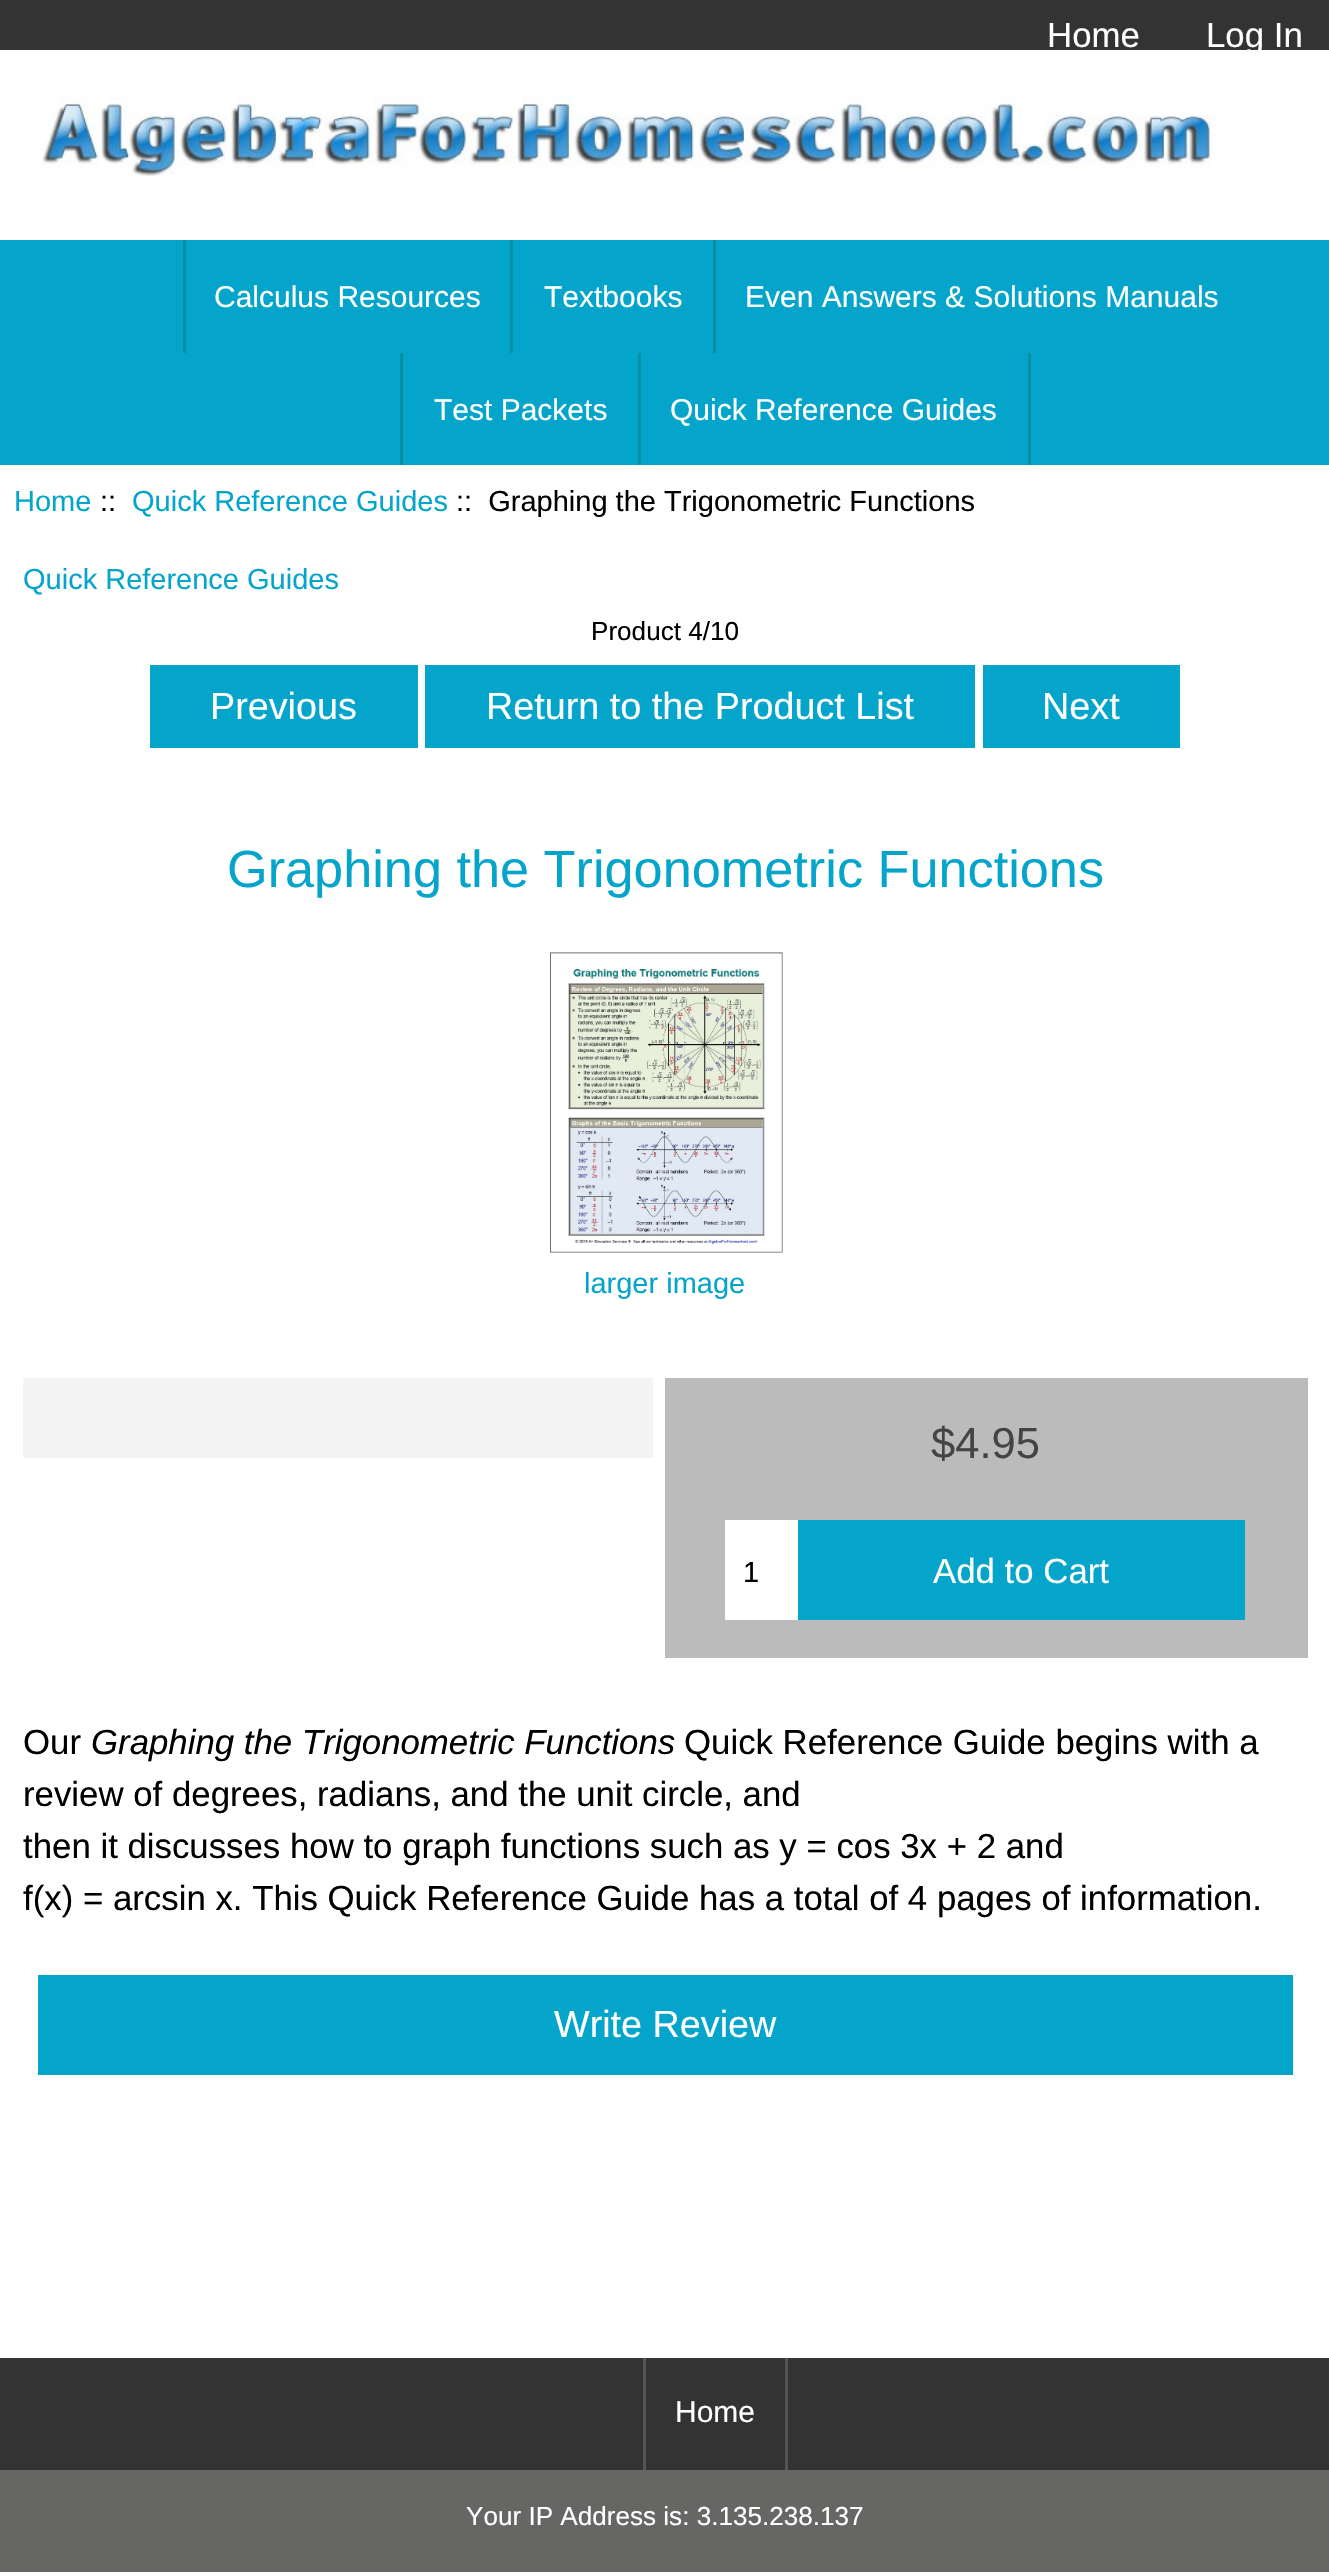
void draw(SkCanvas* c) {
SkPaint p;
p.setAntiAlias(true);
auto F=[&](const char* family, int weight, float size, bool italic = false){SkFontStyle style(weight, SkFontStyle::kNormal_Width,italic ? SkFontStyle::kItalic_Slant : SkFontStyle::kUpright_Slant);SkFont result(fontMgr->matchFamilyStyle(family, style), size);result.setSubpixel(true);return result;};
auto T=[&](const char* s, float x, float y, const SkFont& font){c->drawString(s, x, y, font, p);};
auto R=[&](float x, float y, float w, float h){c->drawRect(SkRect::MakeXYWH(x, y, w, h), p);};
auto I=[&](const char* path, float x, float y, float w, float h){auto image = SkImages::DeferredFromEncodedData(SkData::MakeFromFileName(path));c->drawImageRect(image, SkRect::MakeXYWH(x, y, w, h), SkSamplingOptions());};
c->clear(0xffffffff);
p.setColor(0xff333333);
R(0,0,1329,50);
auto f1 = F("Liberation Sans",400,34.8);
p.setColor(0xffffffff);
T("Home",1047,47,f1);
T("Log In",1206,47,f1);
I("1.png",42,95,1179,81);
p.setColor(0xff05a5cb);
R(0,240,1329,225);
p.setColor(0xff05919f);
R(183,240,3,113);
auto f2 = F("Liberation Sans",400,30);
p.setColor(0xffffffff);
T("Calculus Resources",214,307,f2);
p.setColor(0xff05919f);
R(510,240,3,113);
p.setColor(0xffffffff);
T("Textbooks",544,307,f2);
p.setColor(0xff05919f);
R(713,240,3,113);
p.setColor(0xffffffff);
T("Even Answers & Solutions Manuals",745,307,f2);
p.setColor(0xff05919f);
R(400,353,3,112);
p.setColor(0xffffffff);
T("Test Packets",434,420,f2);
p.setColor(0xff05919f);
R(1028,353,3,112);
R(638,353,3,112);
p.setColor(0xffffffff);
T("Quick Reference Guides",670,420,f2);
auto f3 = F("Liberation Sans",400,29);
p.setColor(0xff05a5cb);
T("Home",14,511,f3);
p.setColor(0xff000000);
T("::",100,511,f3);
p.setColor(0xff05a5cb);
T("Quick Reference Guides",132,511,f3);
p.setColor(0xff000000);
T("::  Graphing the Trigonometric Functions",456,511,f3);
p.setColor(0xff05a5cb);
T("Quick Reference Guides",23,589,f3);
auto f4 = F("Liberation Sans",400,26.1);
p.setColor(0xff000000);
T("Product 4/10",591,640,f4);
p.setColor(0xff05a5cb);
R(150,665,268,83);
auto f5 = F("Liberation Sans",400,37.75);
p.setColor(0xffffffff);
T("Previous",210,719,f5);
p.setColor(0xff05a5cb);
R(425,665,550,83);
p.setColor(0xffffffff);
T("Return to the Product List",486,719,f5);
p.setColor(0xff05a5cb);
R(983,665,197,83);
p.setColor(0xffffffff);
T("Next",1042,719,f5);
auto f6 = F("Liberation Sans",400,52.25);
p.setColor(0xff05a5cb);
T("Graphing the Trigonometric Functions",227,887,f6);
I("2.png",550,952,233,301);
T("larger image",584,1293,f3);
p.setColor(0xfff4f4f4);
R(23,1378,630,80);
p.setColor(0xffbbbbbb);
R(665,1378,643,280);
auto f7 = F("Liberation Sans",400,43.5);
p.setColor(0xff444444);
T("$4.95",931,1458,f7);
p.setColor(0xffffffff);
R(725,1520,73,100);
p.setColor(0xff000000);
T("1",743,1582,f3);
p.setColor(0xff05a5cb);
R(798,1520,447,100);
p.setColor(0xffffffff);
T("Add to Cart",933,1583,f1);
p.setColor(0xff000000);
T("Our",23,1754,f1);
auto f8 = F("Liberation Sans",400,34.8,true);
T("Graphing the Trigonometric Functions",91,1754,f8);
T("Quick Reference Guide begins with a",684,1754,f1);
T("review of degrees, radians, and the unit circle, and",23,1806,f1);
T("then it discusses how to graph functions such as y = cos 3x + 2 and",23,1858,f1);
T("f(x) = arcsin x. This Quick Reference Guide has a total of 4 pages of information.",23,1910,f1);
p.setColor(0xff05a5cb);
R(38,1975,1255,100);
p.setColor(0xffffffff);
T("Write Review",554,2037,f5);
p.setColor(0xff333333);
R(0,2358,1329,112);
p.setColor(0xff555555);
R(785,2358,3,112);
R(643,2358,3,112);
p.setColor(0xffffffff);
T("Home",675,2422,f2);
p.setColor(0xff666665);
R(0,2470,1329,102);
p.setColor(0xffffffff);
T("Your IP Address is: 3.135.238.137",466,2525,f4);
}
